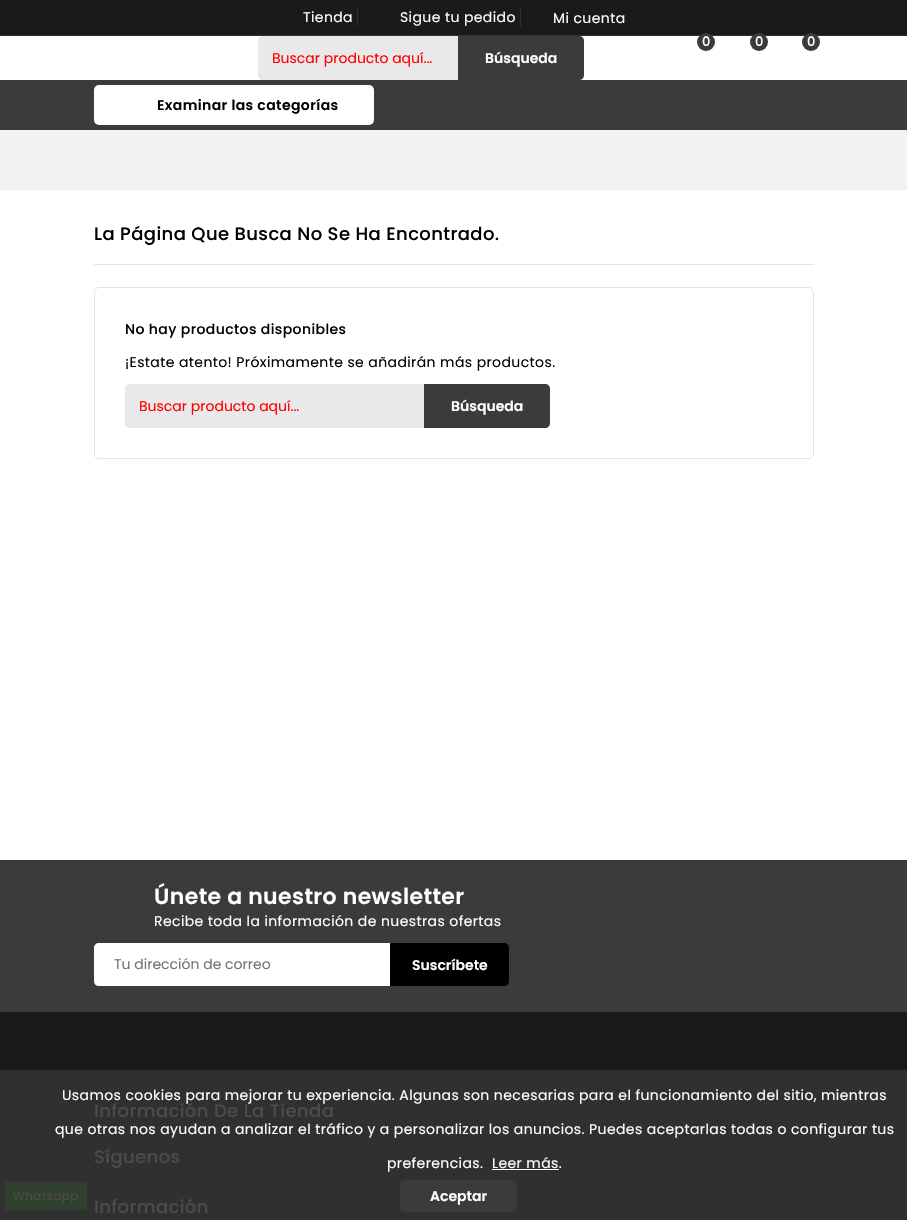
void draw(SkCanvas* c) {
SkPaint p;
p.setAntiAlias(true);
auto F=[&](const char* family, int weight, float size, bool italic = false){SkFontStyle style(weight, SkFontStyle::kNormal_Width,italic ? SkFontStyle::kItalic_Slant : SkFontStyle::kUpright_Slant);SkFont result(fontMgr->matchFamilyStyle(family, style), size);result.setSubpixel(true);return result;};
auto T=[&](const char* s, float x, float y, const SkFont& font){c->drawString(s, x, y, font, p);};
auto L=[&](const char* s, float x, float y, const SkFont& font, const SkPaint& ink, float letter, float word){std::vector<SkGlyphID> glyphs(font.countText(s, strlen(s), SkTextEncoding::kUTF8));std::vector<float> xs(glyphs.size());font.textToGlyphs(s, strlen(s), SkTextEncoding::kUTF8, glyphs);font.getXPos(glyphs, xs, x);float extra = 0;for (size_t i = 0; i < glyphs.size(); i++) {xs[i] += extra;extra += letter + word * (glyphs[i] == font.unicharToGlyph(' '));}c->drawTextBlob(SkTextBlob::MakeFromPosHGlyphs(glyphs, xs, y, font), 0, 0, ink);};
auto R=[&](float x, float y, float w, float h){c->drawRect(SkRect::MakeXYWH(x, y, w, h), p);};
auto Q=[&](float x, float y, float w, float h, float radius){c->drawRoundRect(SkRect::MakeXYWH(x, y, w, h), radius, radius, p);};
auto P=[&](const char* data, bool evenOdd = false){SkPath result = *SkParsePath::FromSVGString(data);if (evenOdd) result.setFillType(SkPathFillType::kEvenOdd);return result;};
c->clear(0xffffffff);
p.setColor(0xff1a1a1a);
R(0,0,907,35);
p.setColor(0xff313131);
R(0,35,907,1);
auto f1 = F("Poppins",400,14);
p.setColor(0xffffffff);
L("Tienda",303,22,f1,p,.4,0);
p.setColor(0xff313131);
R(357,8,1,18);
p.setColor(0xffffffff);
L("Sigue tu pedido",400,22,f1,p,.4,0);
p.setColor(0xff313131);
R(520,8,1,18);
p.setColor(0xffffffff);
L("Mi cuenta",553,23,f1,p,.4,0);
p.setColor(0xff3b3b3b);
c->drawCircle(706,42,9,p);
auto f2 = F("Poppins",500,13);
p.setColor(0xffffffff);
L("0",702,46,f2,p,.4,0);
p.setColor(0xff3b3b3b);
c->drawCircle(759,42,9,p);
p.setColor(0xffffffff);
L("0",755,46,f2,p,.4,0);
p.setColor(0xff3b3b3b);
c->drawCircle(811,42,9,p);
p.setColor(0xffffffff);
L("0",807,46,f2,p,.4,0);
p.setColor(0xffe9e9e9);
c->drawPath(P("M263 36h195v44h-195c-3 0-5-2-5-5v-34c0-3 2-5 5-5z"),p);
p.setColor(0xffff0000);
T("Buscar producto aquí...",272,63,f1);
p.setColor(0xff3b3b3b);
c->drawPath(P("M458 36h121c3 0 5 2 5 5v34c0 3-2 5-5 5h-121z"),p);
auto f3 = F("Poppins",600,14);
p.setColor(0xffffffff);
T("Búsqueda",485,63,f3);
p.setColor(0xff3b3b3b);
R(0,80,907,50);
p.setColor(0xffffffff);
Q(94,85,280,40,5);
p.setColor(0xff000000);
L("Examinar las categorías",157,110,f3,p,.4,0);
p.setColor(0xfff2f2f2);
R(0,130,907,60);
p.setColor(0xffe5e5e5);
R(94,264,720,1);
auto f4 = F("Poppins",500,18);
p.setColor(0xff000000);
L("La Página Que Busca No Se Ha Encontrado.",94,240,f4,p,.4,0);
p.setStroke(true);
p.setStrokeWidth(1);
p.setColor(0xffe5e5e5);
c->drawRoundRect(SkRect::MakeXYWH(94.5,287.5,719,171),4.5,4.5,p);
auto f5 = F("Poppins",500,14);
p.setStroke(false);
p.setColor(0xff000000);
L("No hay productos disponibles",125,334,f5,p,.4,0);
L("¡Estate atento! Próximamente se añadirán más productos.",125,367,f1,p,.4,0);
p.setColor(0xffe9e9e9);
c->drawPath(P("M130 384h294v44h-294c-3 0-5-2-5-5v-34c0-3 2-5 5-5z"),p);
p.setColor(0xffff0000);
T("Buscar producto aquí...",139,411,f1);
p.setColor(0xff3b3b3b);
c->drawPath(P("M424 384h121c3 0 5 2 5 5v34c0 3-2 5-5 5h-121z"),p);
p.setColor(0xffffffff);
T("Búsqueda",451,411,f3);
p.setColor(0xff1a1a1a);
R(0,1012,907,58);
p.setColor(0xff303030);
R(0,1070,907,150);
p.setColor(0xff3b3b3b);
R(0,860,907,152);
auto f6 = F("Poppins",600,22);
p.setColor(0xffffffff);
L("Únete a nuestro newsletter",154,904,f6,p,.4,0);
L("Recibe toda la información de nuestras ofertas",154,926,f1,p,.4,0);
c->drawPath(P("M99 943h291v43h-291c-3 0-5-2-5-5v-33c0-3 2-5 5-5z"),p);
p.setColor(0xff757575);
T("Tu dirección de correo",114,969,f1);
p.setColor(0xff000000);
c->drawPath(P("M390 943h114c3 0 5 2 5 5v33c0 3-2 5-5 5h-114z"),p);
p.setColor(0xffffffff);
T("Suscríbete",412,970,f3);
p.setColor(0xff30402f);
Q(5,1182,82,28,2);
auto f7 = F("Poppins",400,12);
p.setColor(0xff4b4b4b);
L("Whatsapp",13,1200,f7,p,.4,0);
p.setColor(0xffffffff);
L("Usamos cookies para mejorar tu experiencia. Algunas son necesarias para el funcionamiento del sitio, mientras",62,1100,f1,p,.4,0);
L("que otras nos ayudan a analizar el tráfico y a personalizar los anuncios. Puedes aceptarlas todas o configurar tus",55,1134,f1,p,.4,0);
L("preferencias.",387,1168,f1,p,.4,0);
L("Leer más.",492,1168,f1,p,.4,0);
R(492,1169,67,1);
p.setColor(0xff3b3b3b);
Q(400,1180,117,32,5);
p.setColor(0xffffffff);
T("Aceptar",430,1201,f3);
p.setColor(0xff4b4b4b);
L("Información",94,1213,f4,p,.4,0);
L("Información De La Tienda",94,1117,f4,p,.4,0);
L("Síguenos",94,1163,f4,p,.4,0);
}
